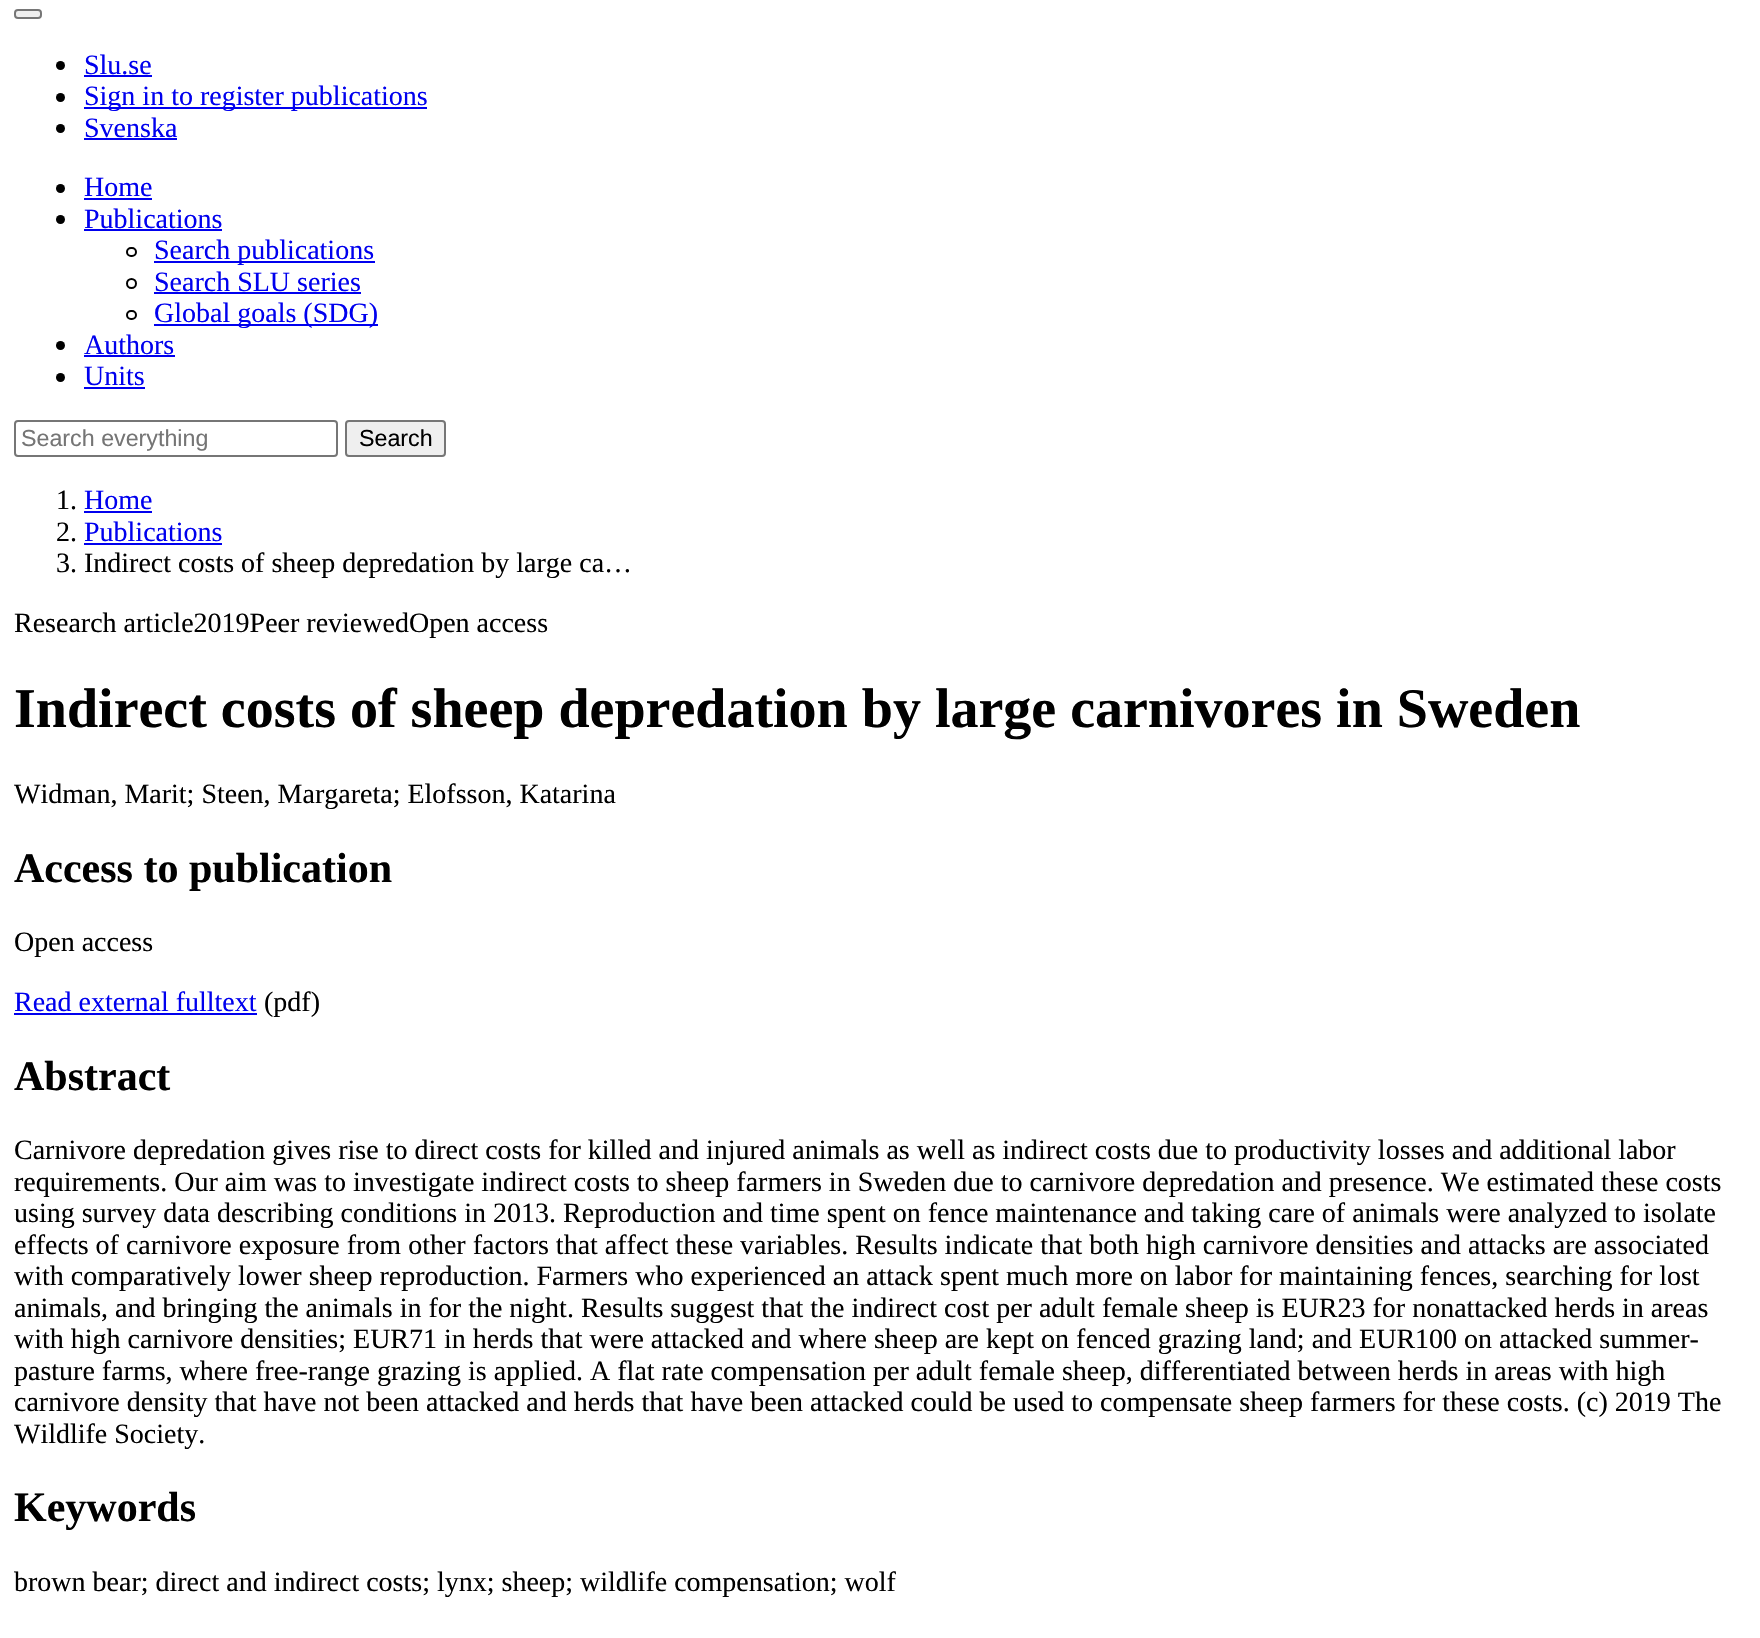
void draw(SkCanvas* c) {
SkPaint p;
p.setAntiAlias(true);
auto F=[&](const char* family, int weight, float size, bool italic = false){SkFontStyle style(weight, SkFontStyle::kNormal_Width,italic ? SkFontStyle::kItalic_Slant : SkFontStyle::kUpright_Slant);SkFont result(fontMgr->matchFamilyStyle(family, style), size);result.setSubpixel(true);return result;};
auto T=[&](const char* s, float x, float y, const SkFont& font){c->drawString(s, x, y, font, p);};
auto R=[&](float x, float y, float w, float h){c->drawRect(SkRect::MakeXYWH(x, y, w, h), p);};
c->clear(0xffffffff);
p.setColor(0xffefefef);
c->drawRoundRect(SkRect::MakeXYWH(15,10,26,8),3,3,p);
p.setStroke(true);
p.setStrokeWidth(2);
p.setColor(0xff767676);
c->drawRoundRect(SkRect::MakeXYWH(15,10,26,8),3,3,p);
p.setStroke(false);
p.setColor(0xff000000);
c->drawCircle(60.5,65.5,4.5,p);
auto f1 = F("Liberation Serif",400,28);
p.setColor(0xff0000ee);
T("Slu.se",84,74,f1);
R(84,75,68,2);
p.setColor(0xff000000);
c->drawCircle(60.5,97.5,4.5,p);
p.setColor(0xff0000ee);
R(84,107,343,2);
T("Sign in to register publications",84,105,f1);
p.setColor(0xff000000);
c->drawCircle(60.5,128.5,4.5,p);
p.setColor(0xff0000ee);
T("Svenska",84,137,f1);
R(84,138,93,2);
p.setColor(0xff000000);
c->drawCircle(60.5,188.5,4.5,p);
p.setColor(0xff0000ee);
T("Home",84,196,f1);
R(84,198,68,2);
p.setColor(0xff000000);
c->drawCircle(60.5,219.5,4.5,p);
p.setColor(0xff0000ee);
T("Publications",84,228,f1);
R(84,229,138,2);
p.setStroke(true);
p.setColor(0xff000000);
c->drawRoundRect(SkRect::MakeXYWH(127,248,9,8),4,4,p);
p.setStroke(false);
p.setColor(0xff0000ee);
R(154,261,221,2);
T("Search publications",154,259,f1);
p.setStroke(true);
p.setColor(0xff000000);
c->drawCircle(131.5,283.5,4.5,p);
p.setStroke(false);
p.setColor(0xff0000ee);
T("Search SLU series",154,291,f1);
R(154,292,207,2);
p.setStroke(true);
p.setColor(0xff000000);
c->drawRoundRect(SkRect::MakeXYWH(127,311,9,8),4,4,p);
p.setStroke(false);
p.setColor(0xff0000ee);
R(154,324,224,2);
T("Global goals (SDG)",154,322,f1);
p.setColor(0xff000000);
c->drawCircle(60.5,345.5,4.5,p);
p.setColor(0xff0000ee);
T("Authors",84,354,f1);
R(84,355,91,2);
p.setColor(0xff000000);
c->drawCircle(60.5,377.5,4.5,p);
p.setColor(0xff0000ee);
T("Units",84,385,f1);
R(84,387,61,2);
p.setStroke(true);
p.setColor(0xff767676);
c->drawRoundRect(SkRect::MakeXYWH(15,421,322,35),3,3,p);
auto f2 = F("Liberation Sans",400,23.25);
p.setStroke(false);
p.setColor(0xff757575);
T("Search everything",21,446,f2);
p.setColor(0xffefefef);
c->drawRoundRect(SkRect::MakeXYWH(346,421,99,35),3,3,p);
p.setStroke(true);
p.setColor(0xff767676);
c->drawRoundRect(SkRect::MakeXYWH(346,421,99,35),3,3,p);
p.setStroke(false);
p.setColor(0xff000000);
T("Search",359,446,f2);
T("1.",56,509,f1);
p.setColor(0xff0000ee);
T("Home",84,509,f1);
R(84,511,68,2);
p.setColor(0xff000000);
T("2.",56,541,f1);
p.setColor(0xff0000ee);
T("Publications",84,541,f1);
R(84,543,138,2);
p.setColor(0xff000000);
T("3. Indirect costs of sheep depredation by large ca…",56,572,f1);
T("Research article2019Peer reviewedOpen access",14,632,f1);
auto f3 = F("Liberation Serif",700,56);
T("Indirect costs of sheep depredation by large carnivores in Sweden",14,727,f3);
T("Widman, Marit; Steen, Margareta; Elofsson, Katarina",14,803,f1);
auto f4 = F("Liberation Serif",700,42);
T("Access to publication",14,882,f4);
T("Open access",14,951,f1);
p.setColor(0xff0000ee);
T("Read external fulltext",14,1011,f1);
R(14,1013,243,2);
p.setColor(0xff000000);
T("(pdf)",264,1011,f1);
T("Abstract",14,1090,f4);
T("Carnivore depredation gives rise to direct costs for killed and injured animals as well as indirect costs due to productivity losses and additional labor",14,1159,f1);
T("requirements. Our aim was to investigate indirect costs to sheep farmers in Sweden due to carnivore depredation and presence. We estimated these costs",14,1191,f1);
T("using survey data describing conditions in 2013. Reproduction and time spent on fence maintenance and taking care of animals were analyzed to isolate",14,1222,f1);
T("effects of carnivore exposure from other factors that affect these variables. Results indicate that both high carnivore densities and attacks are associated",14,1254,f1);
T("with comparatively lower sheep reproduction. Farmers who experienced an attack spent much more on labor for maintaining fences, searching for lost",14,1285,f1);
T("animals, and bringing the animals in for the night. Results suggest that the indirect cost per adult female sheep is EUR23 for nonattacked herds in areas",14,1317,f1);
T("with high carnivore densities; EUR71 in herds that were attacked and where sheep are kept on fenced grazing land; and EUR100 on attacked summer-",14,1348,f1);
T("pasture farms, where free-range grazing is applied. A flat rate compensation per adult female sheep, differentiated between herds in areas with high",14,1380,f1);
T("carnivore density that have not been attacked and herds that have been attacked could be used to compensate sheep farmers for these costs. (c) 2019 The",14,1411,f1);
T("Wildlife Society.",14,1443,f1);
T("Keywords",14,1521,f4);
T("brown bear; direct and indirect costs; lynx; sheep; wildlife compensation; wolf",14,1591,f1);
}
